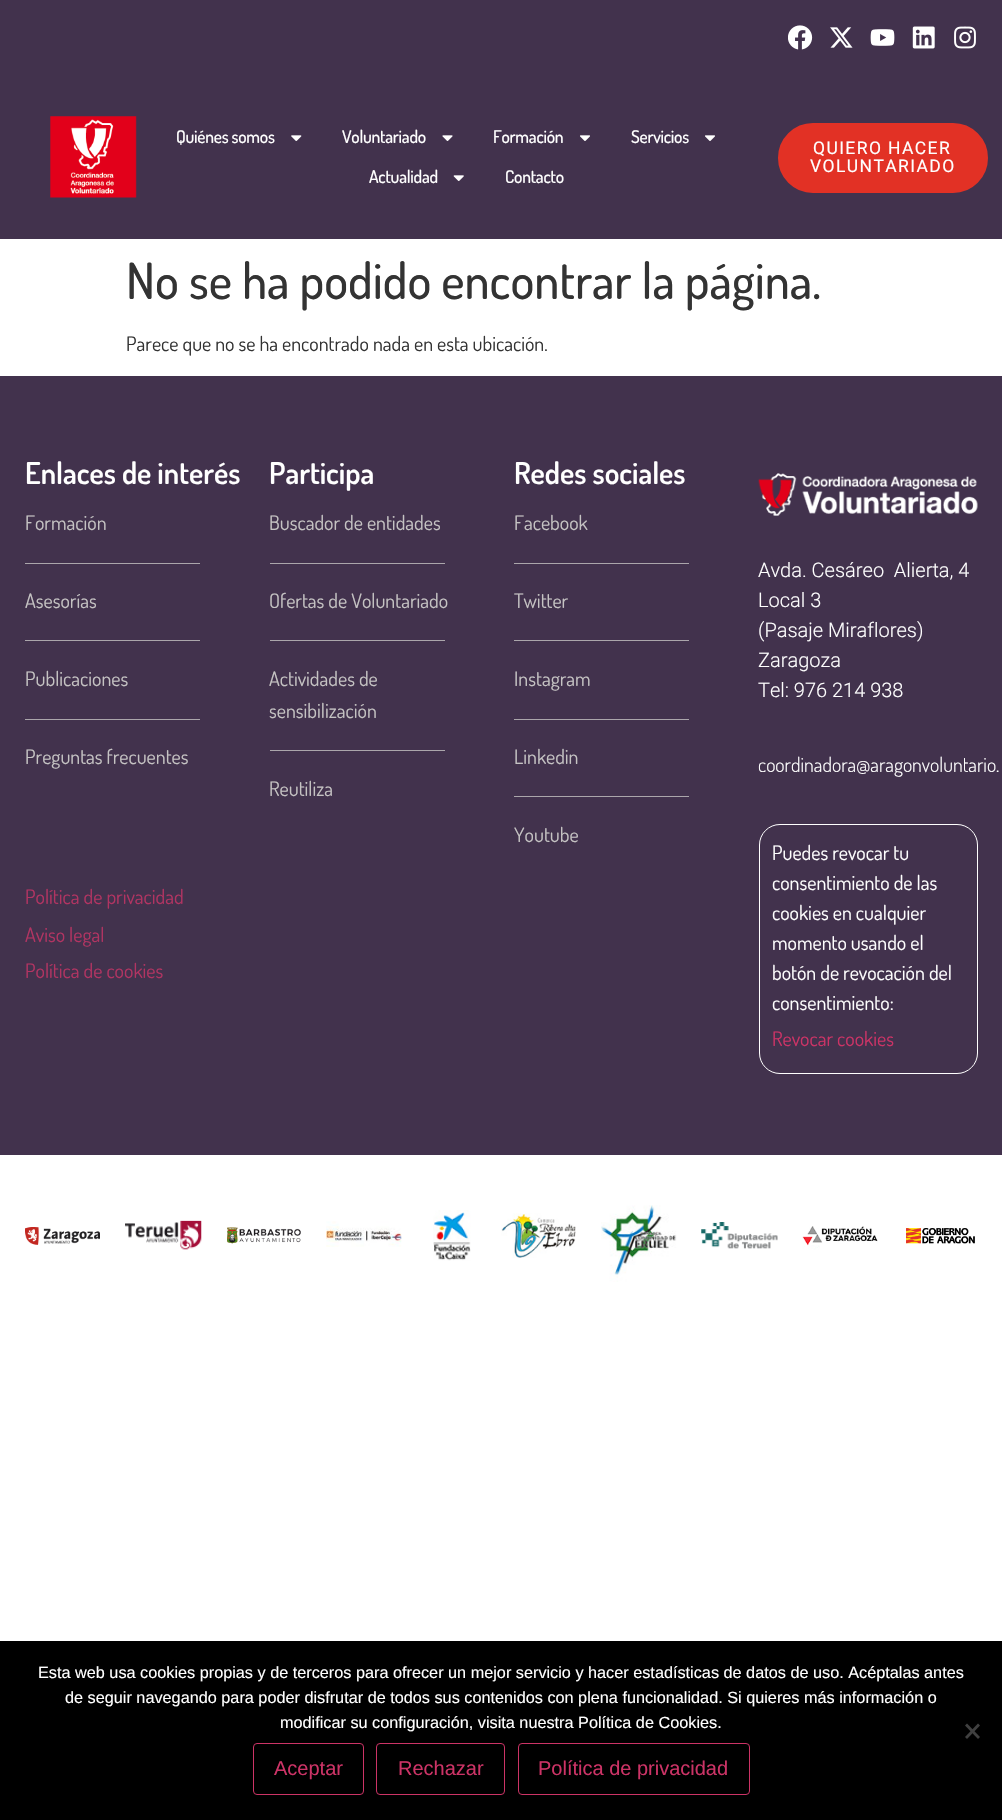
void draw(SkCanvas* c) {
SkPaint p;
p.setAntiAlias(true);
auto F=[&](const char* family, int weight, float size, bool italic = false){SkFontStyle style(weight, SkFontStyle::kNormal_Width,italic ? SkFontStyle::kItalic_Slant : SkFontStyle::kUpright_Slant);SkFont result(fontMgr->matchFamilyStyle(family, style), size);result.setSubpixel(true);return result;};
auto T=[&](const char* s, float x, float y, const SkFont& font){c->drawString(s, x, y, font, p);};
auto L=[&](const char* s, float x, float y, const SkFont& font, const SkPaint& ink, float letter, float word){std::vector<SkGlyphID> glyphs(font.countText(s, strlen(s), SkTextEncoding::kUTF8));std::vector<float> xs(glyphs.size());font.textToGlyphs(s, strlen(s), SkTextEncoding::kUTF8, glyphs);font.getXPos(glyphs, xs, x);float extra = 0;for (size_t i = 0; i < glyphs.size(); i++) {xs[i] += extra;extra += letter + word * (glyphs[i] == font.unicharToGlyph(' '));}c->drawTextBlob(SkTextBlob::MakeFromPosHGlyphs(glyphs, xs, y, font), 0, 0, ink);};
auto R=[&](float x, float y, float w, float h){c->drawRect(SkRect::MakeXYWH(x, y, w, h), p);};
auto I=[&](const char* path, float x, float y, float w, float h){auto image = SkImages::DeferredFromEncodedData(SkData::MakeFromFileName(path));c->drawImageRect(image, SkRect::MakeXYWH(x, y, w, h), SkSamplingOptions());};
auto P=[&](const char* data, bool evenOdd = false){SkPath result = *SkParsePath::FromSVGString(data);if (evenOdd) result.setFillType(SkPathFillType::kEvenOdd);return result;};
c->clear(0xffffffff);
p.setColor(0xff42324d);
R(0,0,1002,239);
I("1.png",788,25,25,25);
I("2.png",830,27,23,21);
I("3.png",870,29,25,17);
I("4.png",912,26,23,23);
I("5.png",954,26,22,23);
I("6.png",50,116,87,82);
auto f1 = F("Dosis",500,17.5);
p.setColor(0xffffffff);
L("Quiénes somos",176,143,f1,p,-.25,0);
I("7.png",291,135,11,6);
L("Voluntariado",342,143,f1,p,-.25,0);
I("8.png",442,135,11,6);
L("Formación",493,143,f1,p,-.25,0);
I("9.png",580,135,10,6);
L("Servicios",631,143,f1,p,-.25,0);
I("9.png",705,135,10,6);
L("Actualidad",369,183,f1,p,-.25,0);
I("10.png",453,175,11,6);
L("Contacto",505,183,f1,p,-.25,0);
p.setColor(0xffe23125);
c->drawRoundRect(SkRect::MakeXYWH(779.5,124.5,207,67),33.5,33.5,p);
p.setStroke(true);
p.setStrokeWidth(3);
c->drawRoundRect(SkRect::MakeXYWH(779.5,124.5,207,67),33.5,33.5,p);
auto f2 = F("Roboto",400,17.5);
p.setStroke(false);
p.setColor(0xffffffff);
L("QUIERO HACER",813,154,f2,p,1.4,0);
L("VOLUNTARIADO",810,172,f2,p,1.4,0);
auto f3 = F("Dosis",500,50);
p.setColor(0xff333333);
T("No se ha podido encontrar la página.",126,299,f3);
auto f4 = F("Dosis",400,20);
T("Parece que no se ha encontrado nada en esta ubicación.",126,351,f4);
p.setColor(0xff42324d);
R(0,376,1002,779);
auto f5 = F("Dosis",600,30);
p.setColor(0xffffffff);
T("Enlaces de interés",25,484,f5);
p.setColor(0xffc5c3c3);
T("Formación",25,530,f4);
p.setColor(0xffaba6ab);
R(25,563,175,1);
p.setColor(0xffc5c3c3);
T("Asesorías",25,608,f4);
p.setColor(0xffaba6ab);
R(25,640,175,1);
p.setColor(0xffc5c3c3);
T("Publicaciones",25,686,f4);
p.setColor(0xffaba6ab);
R(25,719,175,1);
p.setColor(0xffc5c3c3);
T("Preguntas frecuentes",25,764,f4);
p.setColor(0xffb23462);
T("Política de privacidad",25,904,f4);
T("Aviso legal",25,942,f4);
T("Política de cookies",25,978,f4);
p.setColor(0xffffffff);
T("Participa",269,484,f5);
p.setColor(0xffc5c3c3);
T("Buscador de entidades",269,530,f4);
p.setColor(0xffaba6ab);
R(270,563,175,1);
p.setColor(0xffc5c3c3);
T("Ofertas de Voluntariado",269,608,f4);
p.setColor(0xffaba6ab);
R(270,640,175,1);
p.setColor(0xffc5c3c3);
T("Actividades de",269,686,f4);
T("sensibilización",269,718,f4);
p.setColor(0xffaba6ab);
R(270,750,175,1);
p.setColor(0xffc5c3c3);
T("Reutiliza",269,796,f4);
p.setColor(0xffffffff);
T("Redes sociales",514,484,f5);
p.setColor(0xffc5c3c3);
T("Facebook",514,530,f4);
p.setColor(0xffaba6ab);
R(514,563,175,1);
p.setColor(0xffc5c3c3);
T("Twitter",514,608,f4);
p.setColor(0xffaba6ab);
R(514,640,175,1);
p.setColor(0xffc5c3c3);
T("Instagram",514,686,f4);
p.setColor(0xffaba6ab);
R(514,719,175,1);
p.setColor(0xffc5c3c3);
T("Linkedin",514,764,f4);
p.setColor(0xffaba6ab);
R(514,796,175,1);
p.setColor(0xffc5c3c3);
T("Youtube",514,842,f4);
I("11.png",758,473,220,43);
auto f6 = F("Roboto",300,20);
p.setColor(0xffffffff);
T("Avda. Cesáreo  Alierta, 4",758,577,f6);
T("Local 3",758,607,f6);
T("(Pasaje Miraflores)",758,637,f6);
T("Zaragoza",758,667,f6);
T("Tel: 976 214 938",758,697,f6);
auto f7 = F("Dosis",300,20);
T("coordinadora@aragonvoluntario.",758,772,f7);
p.setStroke(true);
p.setStrokeWidth(1);
c->drawRoundRect(SkRect::MakeXYWH(759.5,824.5,218,249),20.5,20.5,p);
p.setStroke(false);
T("Puedes revocar tu",772,860,f4);
T("consentimiento de las",772,890,f4);
T("cookies en cualquier",772,920,f4);
T("momento usando el",772,950,f4);
T("botón de revocación del",772,980,f4);
T("consentimiento:",772,1010,f4);
p.setColor(0xffcc3366);
T("Revocar cookies",772,1046,f4);
I("12.png",25,1227,75,18);
I("13.png",125,1220,77,30);
I("14.png",227,1227,74,17);
I("15.png",326,1221,76,26);
I("16.png",433,1210,38,51);
I("17.png",501,1213,75,45);
I("18.png",601,1205,76,77);
I("19.png",701,1222,77,27);
I("20.png",802,1226,76,24);
I("21.png",906,1228,69,16);
p.setColor(0xff000000);
R(0,1641,1002,179);
auto f8 = F("Liberation Sans",400,16.25);
p.setColor(0xffffffff);
T("Esta web usa cookies propias y de terceros para ofrecer un mejor servicio y hacer estadísticas de datos de uso. Acéptalas antes",38,1678,f8);
T("de seguir navegando para poder disfrutar de todos sus contenidos con plena funcionalidad. Si quieres más información o",65,1703,f8);
T("modificar su configuración, visita nuestra Política de Cookies.",280,1728,f8);
p.setColor(0xff404040);
c->drawPath(P("M978 1723.5l2 2l-13 13.5l-2-2z"),p);
c->drawPath(P("M965 1725.5l2-2l13 13.5l-2 2z"),p);
p.setStroke(true);
p.setColor(0xffcc3366);
c->drawRoundRect(SkRect::MakeXYWH(253.5,1743.5,110,51),3.5,3.5,p);
auto f9 = F("Liberation Sans",400,20);
p.setStroke(false);
T("Aceptar",274,1775,f9);
p.setStroke(true);
c->drawRoundRect(SkRect::MakeXYWH(376.5,1743.5,128,51),3.5,3.5,p);
p.setStroke(false);
T("Rechazar",398,1775,f9);
p.setStroke(true);
c->drawRoundRect(SkRect::MakeXYWH(518.5,1743.5,231,51),3.5,3.5,p);
p.setStroke(false);
T("Política de privacidad",538,1775,f9);
}
